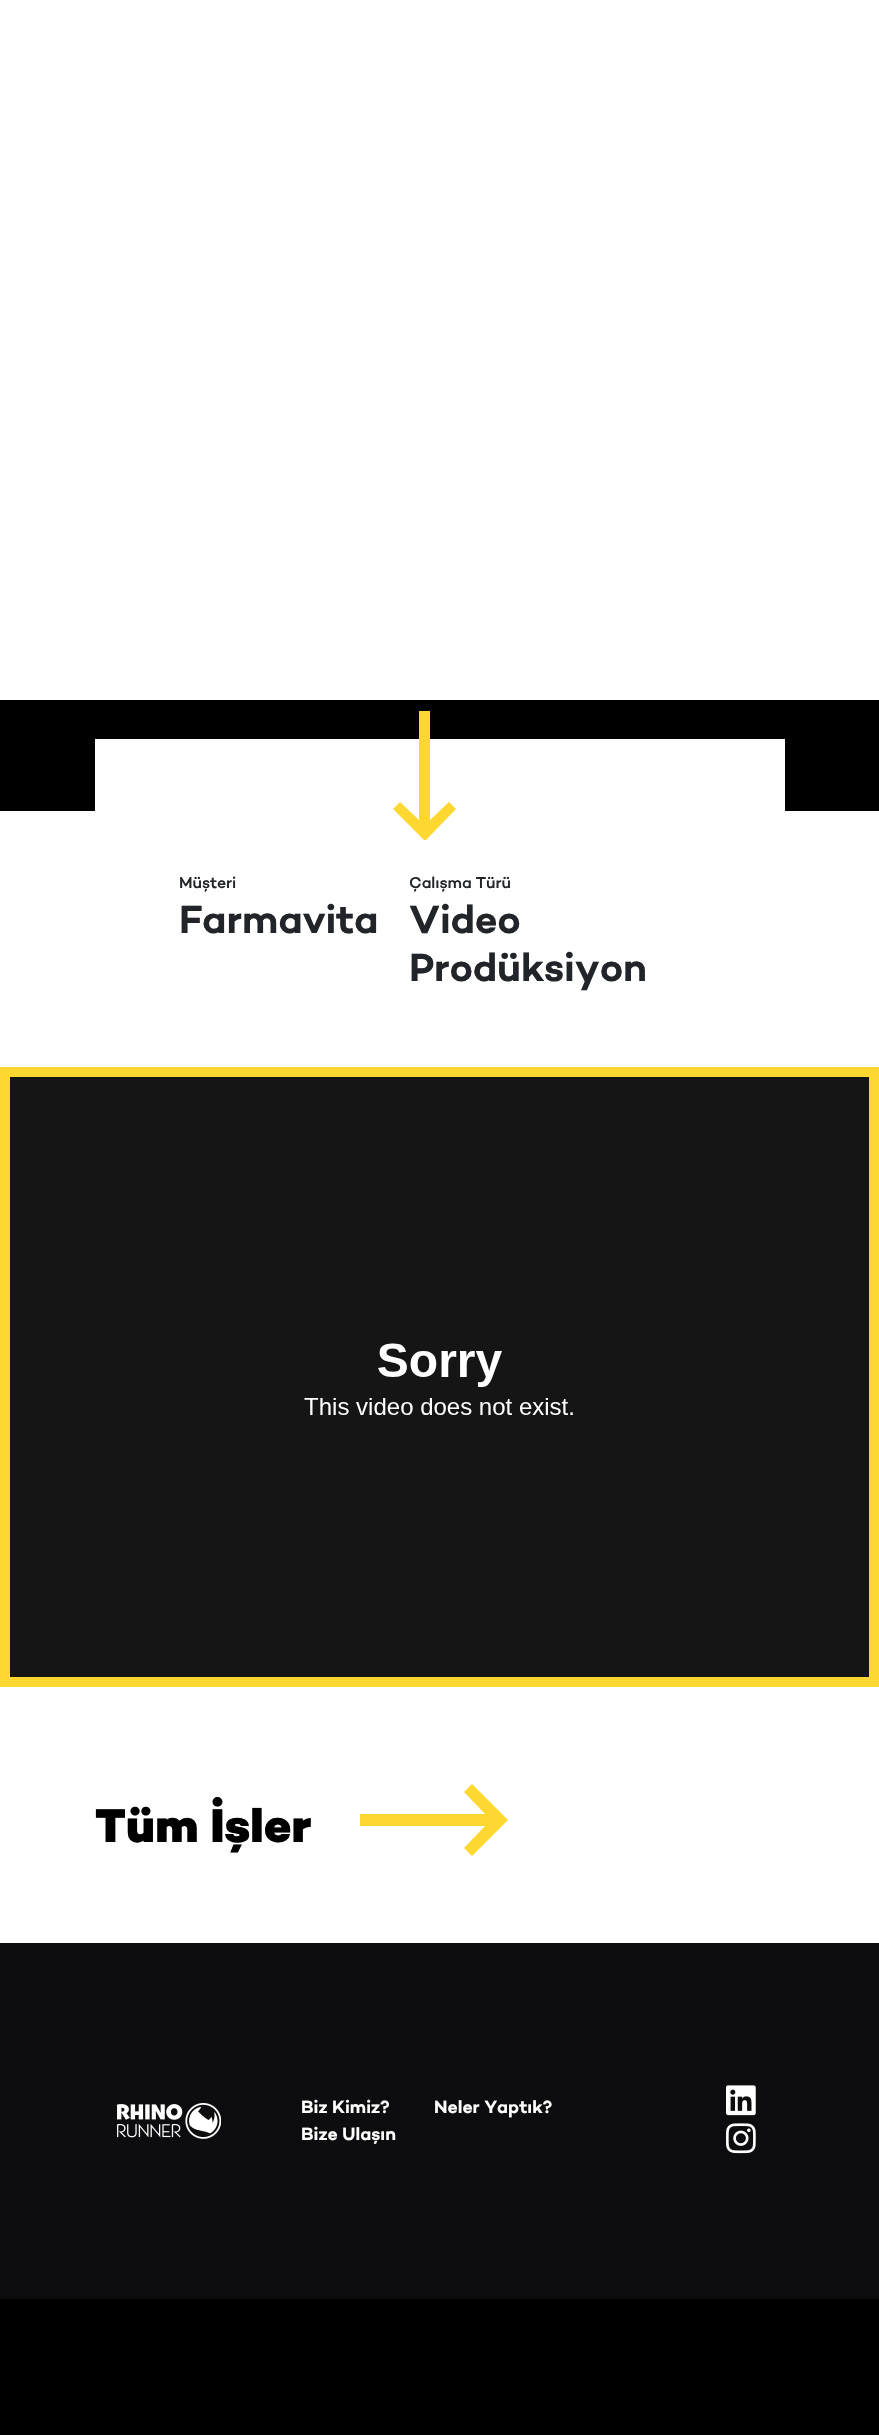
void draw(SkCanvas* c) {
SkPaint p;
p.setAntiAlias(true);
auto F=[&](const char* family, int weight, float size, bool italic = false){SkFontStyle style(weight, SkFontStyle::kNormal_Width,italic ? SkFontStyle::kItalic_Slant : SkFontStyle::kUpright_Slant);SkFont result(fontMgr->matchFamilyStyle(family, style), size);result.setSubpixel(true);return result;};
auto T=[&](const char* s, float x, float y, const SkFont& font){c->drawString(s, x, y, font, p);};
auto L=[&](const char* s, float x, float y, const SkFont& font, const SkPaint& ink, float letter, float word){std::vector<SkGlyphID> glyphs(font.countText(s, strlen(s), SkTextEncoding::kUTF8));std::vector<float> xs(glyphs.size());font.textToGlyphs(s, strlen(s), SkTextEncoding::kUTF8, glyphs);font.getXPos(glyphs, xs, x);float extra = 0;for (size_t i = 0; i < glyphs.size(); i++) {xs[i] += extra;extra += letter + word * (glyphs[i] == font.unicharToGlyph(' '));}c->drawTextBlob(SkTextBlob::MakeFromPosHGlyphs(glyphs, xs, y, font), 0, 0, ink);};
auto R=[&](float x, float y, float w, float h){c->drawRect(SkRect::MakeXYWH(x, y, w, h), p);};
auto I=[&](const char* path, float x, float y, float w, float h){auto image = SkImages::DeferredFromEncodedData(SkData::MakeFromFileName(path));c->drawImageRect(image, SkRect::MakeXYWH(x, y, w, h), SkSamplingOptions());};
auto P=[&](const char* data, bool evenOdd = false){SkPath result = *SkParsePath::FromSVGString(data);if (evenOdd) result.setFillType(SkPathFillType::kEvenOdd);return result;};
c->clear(0xff000000);
p.setColor(0xffffffff);
R(0,0,879,700);
R(0,811,879,256);
R(95,739,690,72);
p.setColor(0xfffed731);
c->drawPath(P("M419 711h11v109l19-18l7 7l-30 31h-2l-31-31l7-7l19 18z"),p);
auto f1 = F("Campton",500,16);
p.setColor(0xff212529);
L("Müşteri",179,888,f1,p,-.1,0);
auto f2 = F("Campton",600,40);
L("Farmavita",179,933,f2,p,-.25,0);
L("Çalışma Türü",409,888,f1,p,-.1,0);
L("Video",409,933,f2,p,-.25,0);
L("Prodüksiyon",409,981,f2,p,-.25,0);
p.setStroke(true);
p.setStrokeWidth(10);
p.setColor(0xfffed731);
c->drawRect(SkRect::MakeXYWH(5,1072,869,610),p);
I("1.png",10,1077,859,600);
p.setStroke(false);
p.setColor(0xffffffff);
R(0,1687,879,256);
auto f3 = F("Campton",800,48);
p.setColor(0xff000000);
L("Tüm İşler",95,1842,f3,p,-.25,0);
p.setColor(0xfffed731);
c->drawPath(P("M360 1826h125l-21 22l8 8l36-36l-36-36l-8 8l21 22h-125z",true),p);
p.setColor(0xff0d0d0f);
R(0,1943,879,356);
I("2.png",117,2103,104,36);
auto f4 = F("Campton",600,18);
p.setColor(0xffffffff);
T("Biz Kimiz?",301,2113,f4);
T("Neler Yaptık?",434,2113,f4);
T("Bize Ulaşın",301,2140,f4);
I("3.png",726,2085,30,31);
I("4.png",726,2123,30,31);
}
